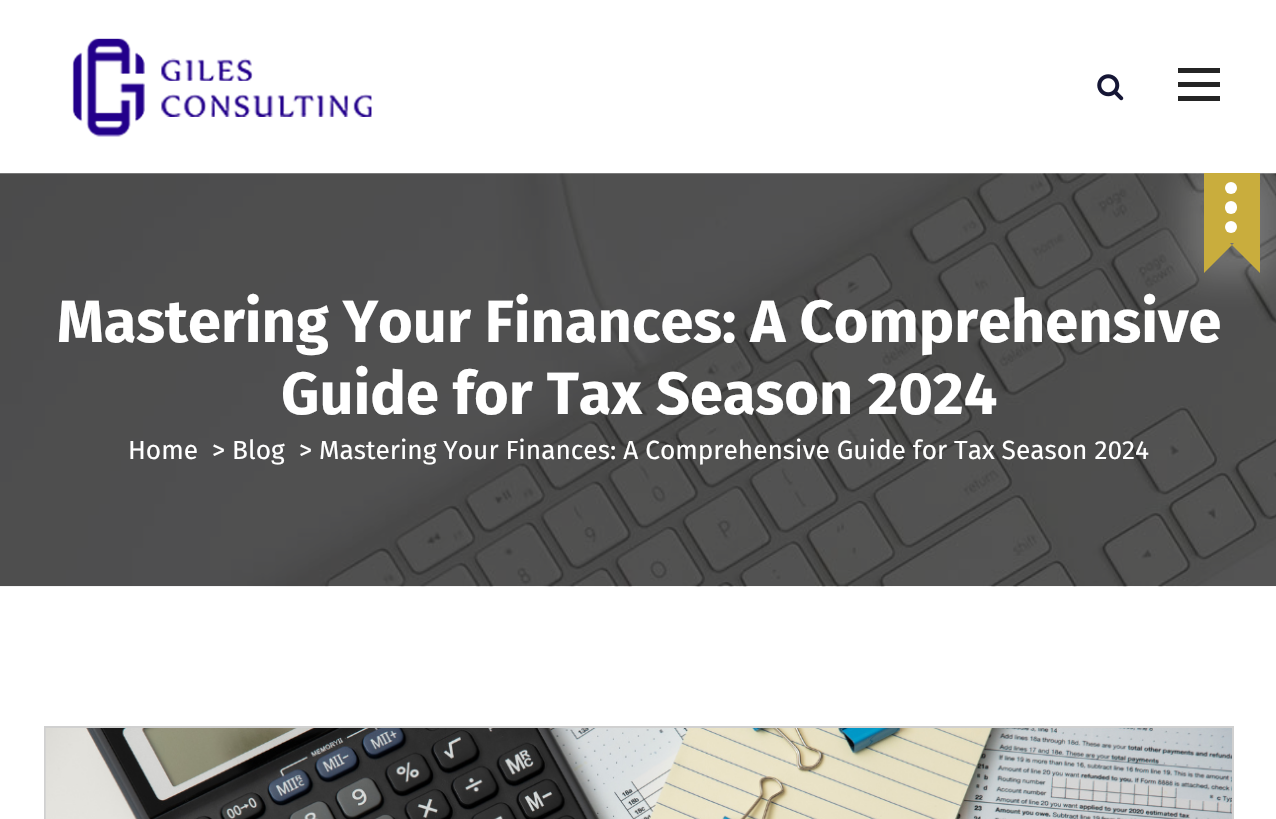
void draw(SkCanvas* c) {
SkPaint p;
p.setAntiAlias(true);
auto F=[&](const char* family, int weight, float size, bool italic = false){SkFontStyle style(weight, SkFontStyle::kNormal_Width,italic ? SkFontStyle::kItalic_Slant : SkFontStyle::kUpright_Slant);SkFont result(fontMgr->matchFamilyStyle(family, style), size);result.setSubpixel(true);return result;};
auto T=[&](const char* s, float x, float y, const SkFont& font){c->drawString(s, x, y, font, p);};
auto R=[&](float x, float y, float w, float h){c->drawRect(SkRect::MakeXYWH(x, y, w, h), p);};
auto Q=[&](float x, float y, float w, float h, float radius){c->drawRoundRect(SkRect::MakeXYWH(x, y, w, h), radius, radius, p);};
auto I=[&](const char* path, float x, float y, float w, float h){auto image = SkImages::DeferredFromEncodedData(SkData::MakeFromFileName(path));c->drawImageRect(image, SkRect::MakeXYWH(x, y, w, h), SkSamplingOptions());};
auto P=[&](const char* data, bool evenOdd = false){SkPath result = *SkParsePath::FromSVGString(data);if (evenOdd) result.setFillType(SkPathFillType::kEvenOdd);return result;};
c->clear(0xffffffff);
I("1.png",72,38,300,99);
I("2.png",1097,74,27,27);
p.setColor(0xff242424);
R(1178,68,42,5);
R(1178,82,42,5);
R(1178,96,42,5);
I("3.png",0,173,1276,414);
p.setColor(0x33ffffff);
p.setMaskFilter(SkMaskFilter::MakeBlur(kNormal_SkBlurStyle, 17.5));
c->drawRect(SkRect::MakeXYWH(1187,173,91,105),p);
p.setMaskFilter(nullptr);
p.setColor(0xffc9ad3d);
R(1204,173,56,70);
p.setColor(0xffffffff);
Q(1225,201,12,13,6);
c->drawCircle(1231,188,6,p);
p.setColor(0xffc9ad3d);
c->drawPath(P("M1260 217v56l-28-28zm-56 56v-56l28 28z"),p);
p.setColor(0xffffffff);
c->drawCircle(1231,227,6,p);
auto f1 = F("Fira Sans",700,59.5);
T("Mastering Your Finances: A Comprehensive",57,342,f1);
T("Guide for Tax Season 2024",281,414,f1);
auto f2 = F("Fira Sans",400,26.25);
T("Home",128,459,f2);
T("> Blog",212,459,f2);
T("> Mastering Your Finances: A Comprehensive Guide for Tax Season 2024",299,459,f2);
p.setStroke(true);
p.setStrokeWidth(2);
p.setColor(0xffd0d0d0);
c->drawRect(SkRect::MakeXYWH(45,727,1188,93),p);
I("4.png",45,728,1187,91);
}
